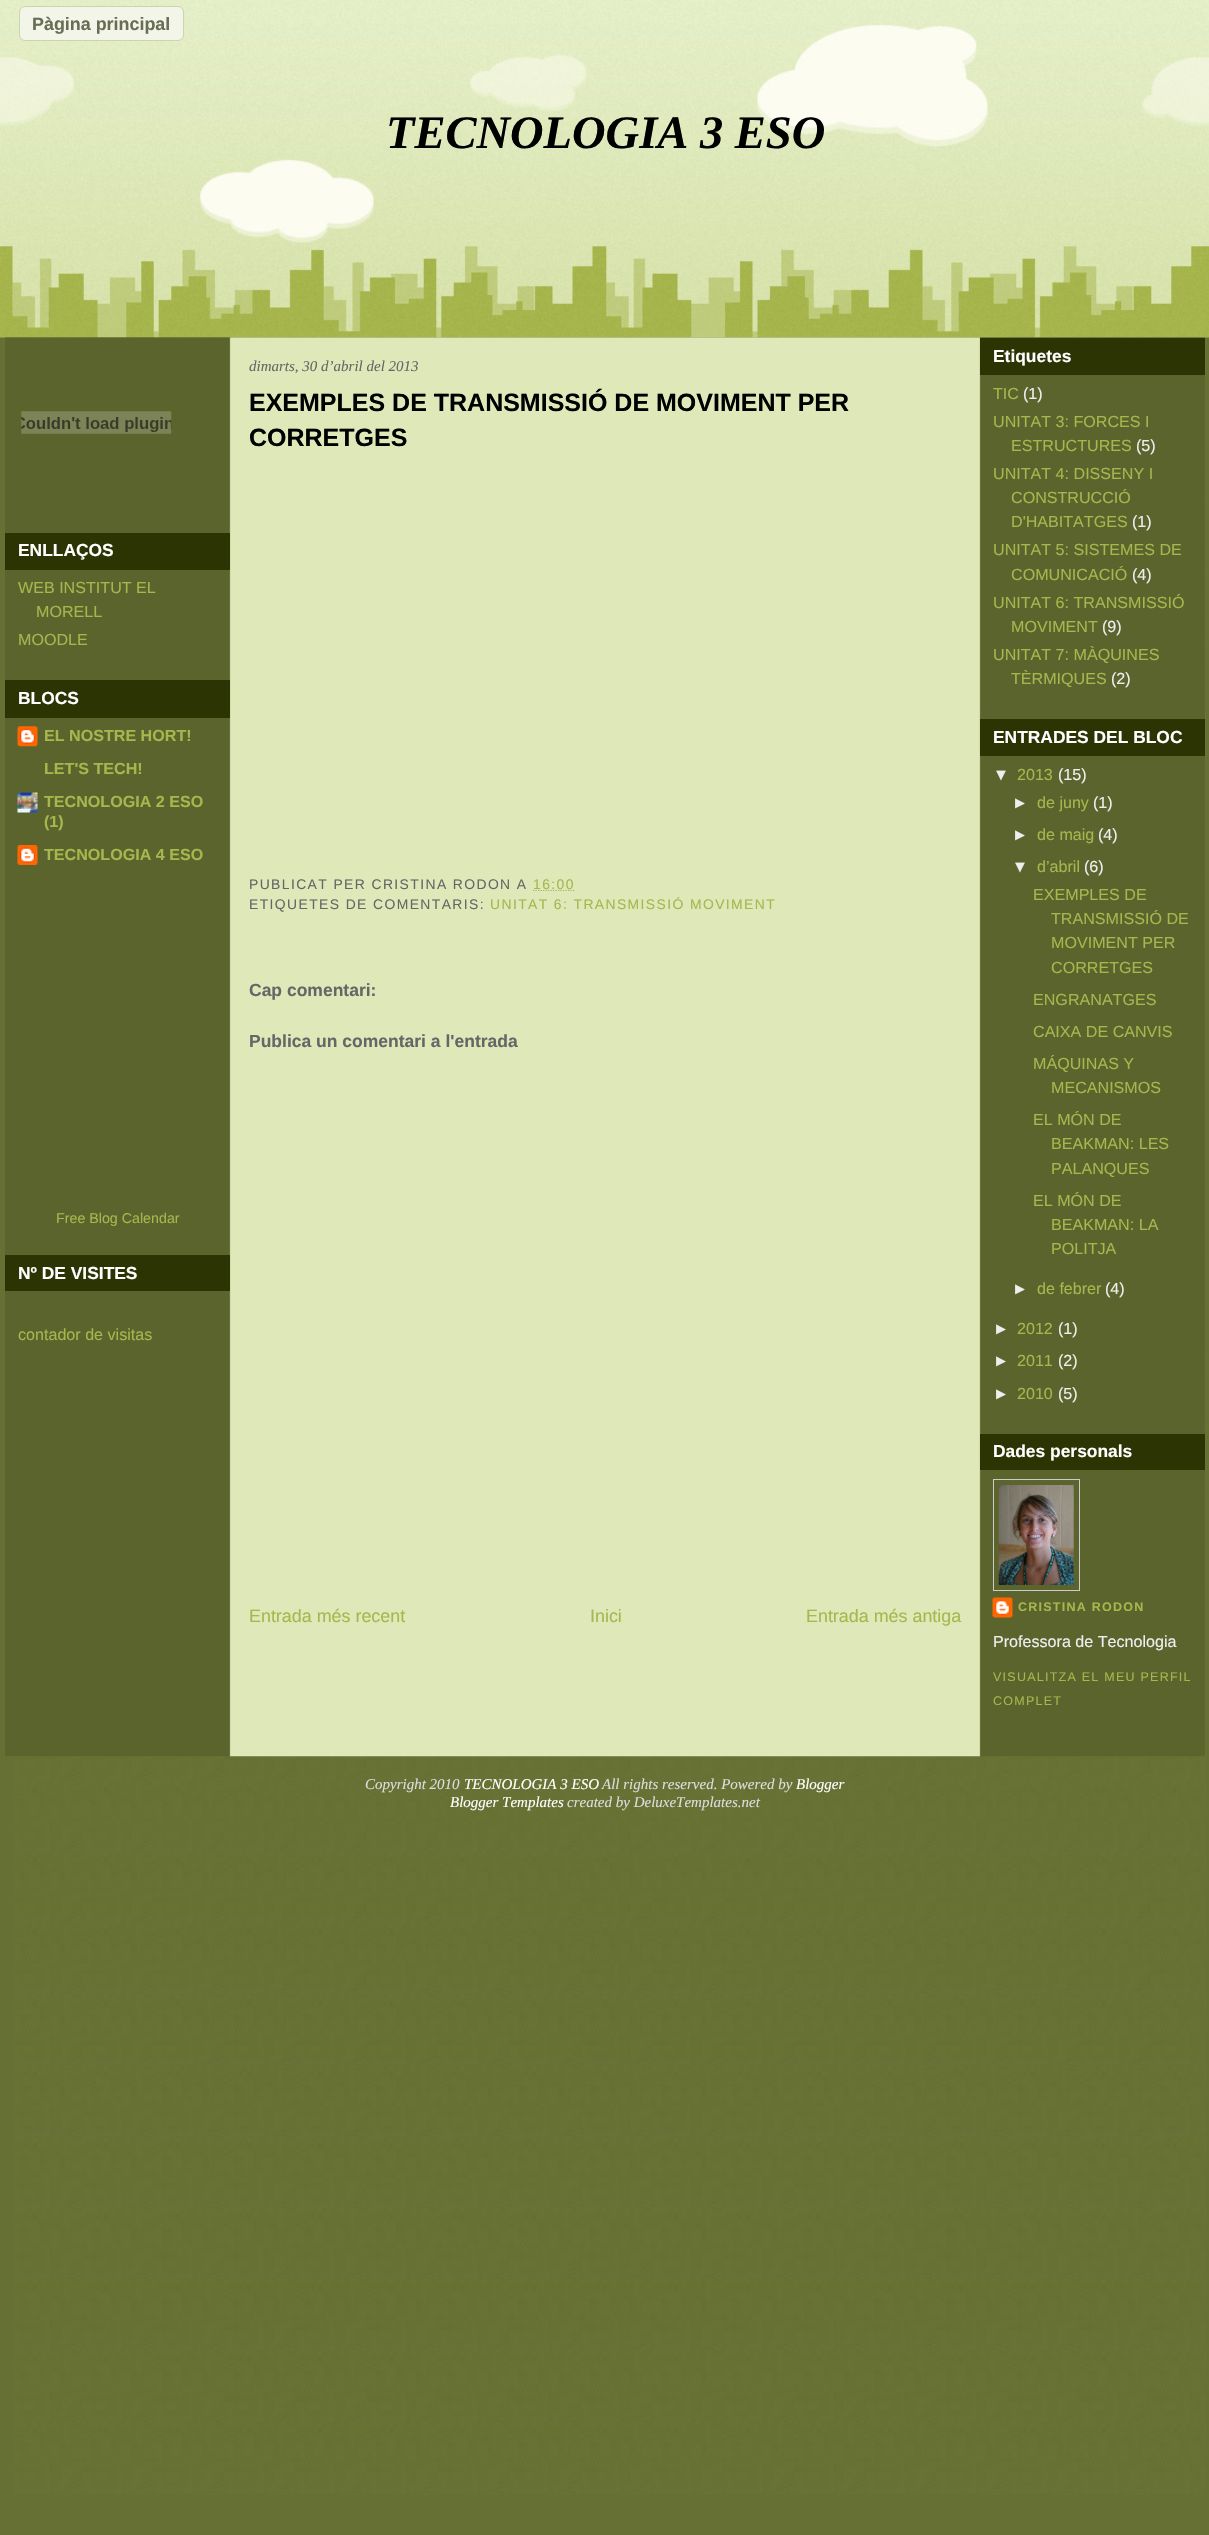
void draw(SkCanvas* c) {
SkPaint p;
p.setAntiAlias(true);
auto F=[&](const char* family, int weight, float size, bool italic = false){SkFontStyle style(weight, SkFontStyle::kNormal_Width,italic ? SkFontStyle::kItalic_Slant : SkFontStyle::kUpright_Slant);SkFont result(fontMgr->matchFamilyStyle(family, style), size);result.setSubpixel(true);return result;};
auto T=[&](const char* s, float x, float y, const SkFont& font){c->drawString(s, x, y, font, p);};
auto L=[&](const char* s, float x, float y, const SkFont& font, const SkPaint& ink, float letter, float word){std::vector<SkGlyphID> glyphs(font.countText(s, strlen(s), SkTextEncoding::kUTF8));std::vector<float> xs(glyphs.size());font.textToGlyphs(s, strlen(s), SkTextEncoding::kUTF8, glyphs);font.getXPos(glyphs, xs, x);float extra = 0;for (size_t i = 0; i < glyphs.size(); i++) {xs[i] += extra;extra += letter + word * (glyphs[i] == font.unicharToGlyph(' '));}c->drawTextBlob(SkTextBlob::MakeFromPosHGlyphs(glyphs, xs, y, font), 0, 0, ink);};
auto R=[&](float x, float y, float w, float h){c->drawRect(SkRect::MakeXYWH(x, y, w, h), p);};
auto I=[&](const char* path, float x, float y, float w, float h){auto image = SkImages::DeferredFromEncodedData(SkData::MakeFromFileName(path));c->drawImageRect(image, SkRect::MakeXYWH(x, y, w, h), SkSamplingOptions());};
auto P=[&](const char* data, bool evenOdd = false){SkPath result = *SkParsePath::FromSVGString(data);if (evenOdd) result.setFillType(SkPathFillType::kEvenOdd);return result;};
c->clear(0xff677034);
I("1.png",14,337,1192,2157);
I("2.png",0,0,1209,338);
p.setColor(0xfff2f5e8);
c->drawRoundRect(SkRect::MakeXYWH(19.5,6.5,164,34),5.5,5.5,p);
p.setStroke(true);
p.setStrokeWidth(1);
p.setColor(0xffcad4ae);
c->drawRoundRect(SkRect::MakeXYWH(19.5,6.5,164,34),5.5,5.5,p);
auto f1 = F("Liberation Sans",700,17.9);
p.setStroke(false);
p.setColor(0xff686e55);
T("Pàgina principal",32,30,f1);
auto f2 = F("Liberation Serif",700,46.5,true);
p.setColor(0xff000000);
T("TECNOLOGIA 3 ESO",386,148,f2);
I("3.png",5,337,1200,1420);
I("4.png",21,411,151,23);
p.setColor(0xff2c3403);
R(5,533,225,37);
auto f3 = F("Liberation Sans",700,17.4);
p.setColor(0xffffffff);
T("ENLLAÇOS",18,556,f3);
auto f4 = F("Liberation Sans",400,16.1);
p.setColor(0xffa7b64d);
T("WEB INSTITUT EL",18,593,f4);
T("MORELL",36,617,f4);
T("MOODLE",18,645,f4);
p.setColor(0xff2c3403);
R(5,680,225,38);
p.setColor(0xffffffff);
T("BLOCS",18,704,f3);
I("5.png",17,726,21,21);
auto f5 = F("Liberation Sans",700,16.1);
p.setColor(0xffa7b64d);
T("EL NOSTRE HORT!",44,741,f5);
T("LET'S TECH!",44,774,f5);
I("6.png",17,792,21,21);
T("TECNOLOGIA 2 ESO",44,807,f5);
T("(1)",44,827,f5);
I("7.png",17,845,21,20);
T("TECNOLOGIA 4 ESO",44,860,f5);
auto f6 = F("Liberation Sans",400,14.25);
T("Free Blog Calendar",56,1223,f6);
p.setColor(0xff2c3403);
R(5,1255,225,36);
p.setColor(0xffffffff);
T("Nº DE VISITES",18,1279,f3);
p.setColor(0xffa7b64d);
T("contador de visitas",18,1340,f4);
auto f7 = F("Liberation Serif",400,15,true);
p.setColor(0xff666666);
T("dimarts, 30 d’abril del 2013",249,371,f7);
auto f8 = F("Liberation Sans",700,25);
p.setColor(0xff000000);
T("EXEMPLES DE TRANSMISSIÓ DE MOVIMENT PER",249,411,f8);
T("CORRETGES",249,446,f8);
auto f9 = F("Liberation Sans",400,13.9);
p.setColor(0xff666666);
L("PUBLICAT PER CRISTINA RODON A",249,889,f9,p,1.4,0);
p.setStroke(true);
p.setStrokeWidth(1.2);
p.setColor(0xffa7b64d);
p.setPathEffect(SkDashPathEffect::Make({{1.25f,1.25f}}, 0));
c->drawPath(P("M533 890.5h41.5"),p);
p.setPathEffect(nullptr);
p.setStroke(false);
L("16:00",533,889,f9,p,1.4,0);
p.setColor(0xff666666);
L("ETIQUETES DE COMENTARIS:",249,909,f9,p,1.4,0);
p.setColor(0xffa7b64d);
L("UNITAT 6: TRANSMISSIÓ MOVIMENT",490,909,f9,p,1.4,0);
auto f10 = F("Liberation Sans",700,17.5);
p.setColor(0xff666666);
T("Cap comentari:",249,996,f10);
T("Publica un comentari a l'entrada",249,1047,f10);
auto f11 = F("Liberation Sans",400,17.9);
p.setColor(0xffa7b64d);
T("Entrada més recent",249,1622,f11);
T("Inici",590,1622,f11);
T("Entrada més antiga",806,1622,f11);
p.setColor(0xff2c3403);
R(980,338,225,37);
p.setColor(0xffffffff);
T("Etiquetes",993,362,f3);
p.setColor(0xffa7b64d);
T("TIC",993,399,f4);
p.setColor(0xffeeeeee);
T("(1)",1023,399,f4);
p.setColor(0xffa7b64d);
T("UNITAT 3: FORCES I",993,427,f4);
T("ESTRUCTURES",1011,451,f4);
p.setColor(0xffeeeeee);
T("(5)",1136,451,f4);
p.setColor(0xffa7b64d);
T("UNITAT 4: DISSENY I",993,479,f4);
T("CONSTRUCCIÓ",1011,503,f4);
T("D'HABITATGES",1011,527,f4);
p.setColor(0xffeeeeee);
T("(1)",1132,527,f4);
p.setColor(0xffa7b64d);
T("UNITAT 5: SISTEMES DE",993,555,f4);
T("COMUNICACIÓ",1011,580,f4);
p.setColor(0xffeeeeee);
T("(4)",1132,580,f4);
p.setColor(0xffa7b64d);
T("UNITAT 6: TRANSMISSIÓ",993,608,f4);
T("MOVIMENT",1011,632,f4);
p.setColor(0xffeeeeee);
T("(9)",1102,632,f4);
p.setColor(0xffa7b64d);
T("UNITAT 7: MÀQUINES",993,660,f4);
T("TÈRMIQUES",1011,684,f4);
p.setColor(0xffeeeeee);
T("(2)",1111,684,f4);
p.setColor(0xff2c3403);
R(980,719,225,37);
p.setColor(0xffffffff);
T("ENTRADES DEL BLOC",993,743,f3);
p.setColor(0xffeeeeee);
T("▼",993,780,f4);
p.setColor(0xffa7b64d);
T("2013",1017,780,f4);
p.setColor(0xffeeeeee);
T("(15)",1058,780,f4);
T("►",1012,808,f4);
p.setColor(0xffa7b64d);
T("de juny",1037,808,f4);
p.setColor(0xffeeeeee);
T("(1)",1093,808,f4);
T("►",1012,840,f4);
p.setColor(0xffa7b64d);
T("de maig",1037,840,f4);
p.setColor(0xffeeeeee);
T("(4)",1098,840,f4);
T("▼",1012,872,f4);
p.setColor(0xffa7b64d);
T("d’abril",1037,872,f4);
p.setColor(0xffeeeeee);
T("(6)",1084,872,f4);
p.setColor(0xffa7b64d);
T("EXEMPLES DE",1033,900,f4);
T("TRANSMISSIÓ DE",1051,924,f4);
T("MOVIMENT PER",1051,948,f4);
T("CORRETGES",1051,973,f4);
T("ENGRANATGES",1033,1005,f4);
T("CAIXA DE CANVIS",1033,1037,f4);
T("MÁQUINAS Y",1033,1069,f4);
T("MECANISMOS",1051,1093,f4);
T("EL MÓN DE",1033,1125,f4);
T("BEAKMAN: LES",1051,1149,f4);
T("PALANQUES",1051,1174,f4);
T("EL MÓN DE",1033,1206,f4);
T("BEAKMAN: LA",1051,1230,f4);
T("POLITJA",1051,1254,f4);
p.setColor(0xffeeeeee);
T("►",1012,1294,f4);
p.setColor(0xffa7b64d);
T("de febrer",1037,1294,f4);
p.setColor(0xffeeeeee);
T("(4)",1105,1294,f4);
T("►",993,1334,f4);
p.setColor(0xffa7b64d);
T("2012",1017,1334,f4);
p.setColor(0xffeeeeee);
T("(1)",1058,1334,f4);
T("►",993,1366,f4);
p.setColor(0xffa7b64d);
T("2011",1017,1366,f4);
p.setColor(0xffeeeeee);
T("(2)",1058,1366,f4);
T("►",993,1399,f4);
p.setColor(0xffa7b64d);
T("2010",1017,1399,f4);
p.setColor(0xffeeeeee);
T("(5)",1058,1399,f4);
p.setColor(0xff2c3403);
R(980,1434,225,36);
p.setColor(0xffffffff);
T("Dades personals",993,1457,f3);
p.setStroke(true);
p.setStrokeWidth(1);
p.setColor(0xffcccccc);
c->drawRect(SkRect::MakeXYWH(993.5,1479.5,86,111),p);
I("8.png",998,1485,76,100);
I("9.png",992,1597,21,21);
auto f12 = F("Liberation Sans",700,12.5);
p.setStroke(false);
p.setColor(0xffa7b64d);
L("CRISTINA RODON",1018,1611,f12,p,1.25,0);
p.setColor(0xffeeeeee);
T("Professora de Tecnologia",993,1647,f4);
auto f13 = F("Liberation Sans",400,12.5);
p.setColor(0xffa7b64d);
L("VISUALITZA EL MEU PERFIL",993,1681,f13,p,1.25,0);
L("COMPLET",993,1705,f13,p,1.25,0);
p.setColor(0xffdddddd);
T("Copyright 2010",365,1789,f7);
p.setColor(0xffffffff);
T("TECNOLOGIA 3 ESO",464,1789,f7);
p.setColor(0xffdddddd);
T("All rights reserved. Powered by",602,1789,f7);
p.setColor(0xffffffff);
T("Blogger",796,1789,f7);
T("Blogger Templates",450,1807,f7);
p.setColor(0xffdddddd);
T("created by DeluxeTemplates.net",567,1807,f7);
}
